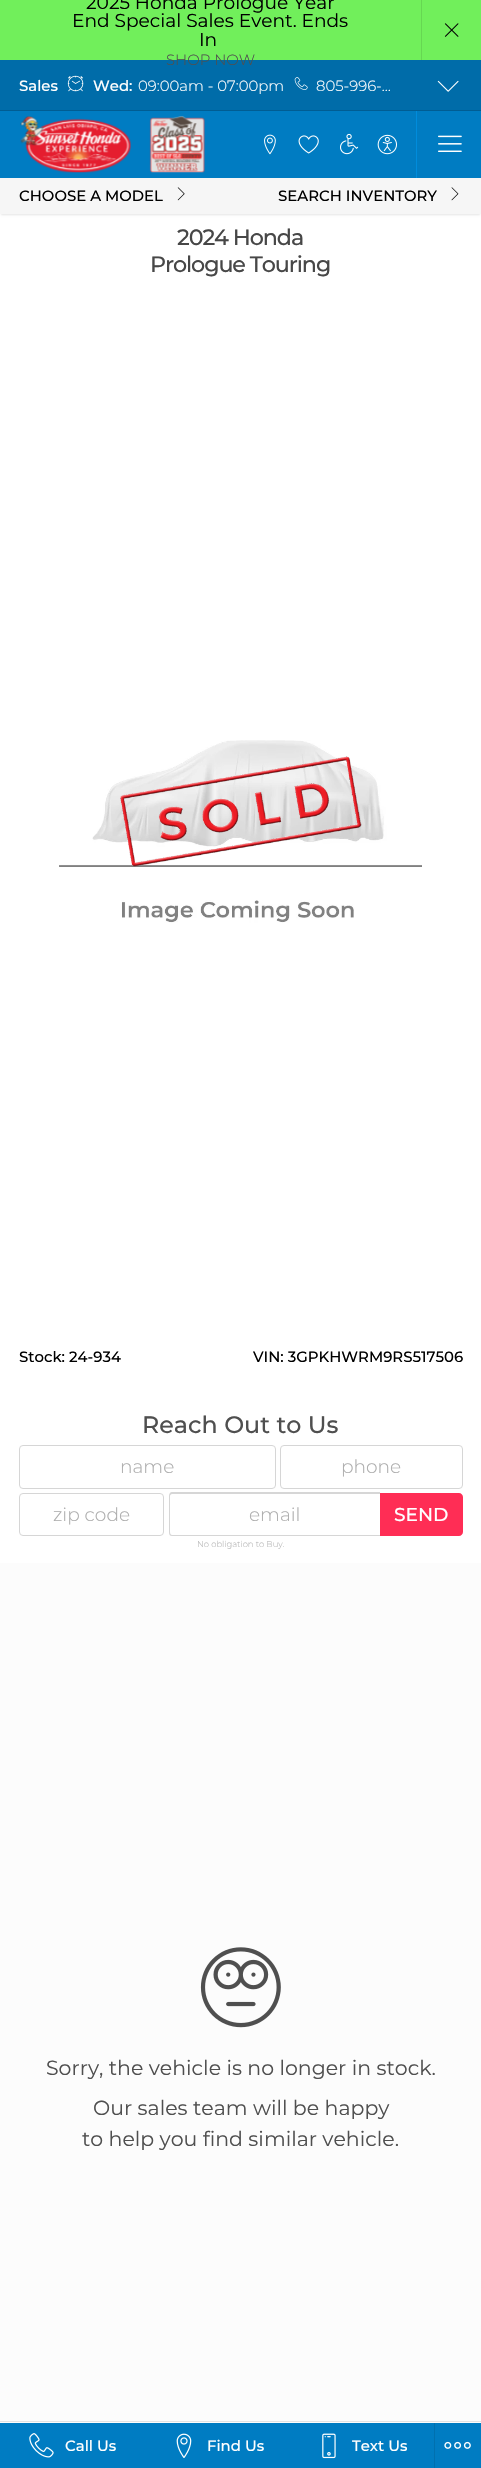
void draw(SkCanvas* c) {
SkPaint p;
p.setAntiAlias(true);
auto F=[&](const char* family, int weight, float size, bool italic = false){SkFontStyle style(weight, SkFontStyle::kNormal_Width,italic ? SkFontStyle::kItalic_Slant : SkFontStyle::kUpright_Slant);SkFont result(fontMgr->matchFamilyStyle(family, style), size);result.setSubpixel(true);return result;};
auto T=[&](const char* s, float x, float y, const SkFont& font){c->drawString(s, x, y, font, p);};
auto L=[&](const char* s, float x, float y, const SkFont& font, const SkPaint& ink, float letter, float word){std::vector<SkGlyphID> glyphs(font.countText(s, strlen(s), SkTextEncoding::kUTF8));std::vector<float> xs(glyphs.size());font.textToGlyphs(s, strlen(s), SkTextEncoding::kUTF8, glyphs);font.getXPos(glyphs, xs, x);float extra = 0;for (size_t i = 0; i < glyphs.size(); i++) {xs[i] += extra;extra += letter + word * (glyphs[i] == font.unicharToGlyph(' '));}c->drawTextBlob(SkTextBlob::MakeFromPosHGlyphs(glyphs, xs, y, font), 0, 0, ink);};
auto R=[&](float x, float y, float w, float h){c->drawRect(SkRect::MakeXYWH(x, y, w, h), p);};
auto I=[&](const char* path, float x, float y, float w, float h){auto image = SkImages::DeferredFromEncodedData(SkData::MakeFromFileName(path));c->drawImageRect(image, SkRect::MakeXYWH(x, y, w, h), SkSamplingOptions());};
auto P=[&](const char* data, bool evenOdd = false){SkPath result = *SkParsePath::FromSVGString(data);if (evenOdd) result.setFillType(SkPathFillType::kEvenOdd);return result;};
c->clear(0xfffcfcfc);
p.setColor(0xff71ef5b);
R(0,0,481,60);
auto f1 = F("Montserrat",400,18.6);
p.setColor(0xff000000);
T("2025 Honda Prologue Year",86,9,f1);
T("End Special Sales Event. Ends",72,27,f1);
T("In",199,46,f1);
p.setColor(0xff006ca9);
R(0,60,481,50);
auto f2 = F("Montserrat",300,14.9);
p.setColor(0xff4f4f4f);
T("SHOP NOW",166,65,f2);
p.setColor(0xff66d752);
R(421,0,1,60);
I("1.png",444,23,15,14);
p.setColor(0xff007cc2);
R(0,111,481,67);
p.setColor(0xff005d93);
R(0,110,481,1);
auto f3 = F("Montserrat",500,14.9);
p.setColor(0xffffffff);
T("Sales",19,91,f3);
I("2.png",67,75,17,17);
T("Wed:",93,91,f3);
T("09:00am - 07:00pm",138,91,f2);
I("3.png",294,77,14,13);
T("805-996-…",316,91,f2);
I("4.png",437,80,22,12);
I("5.png",20,116,185,57);
I("6.png",264,134,12,21);
I("7.png",298,135,21,19);
I("8.png",340,133,19,22);
I("9.png",377,134,20,21);
R(0,214,481,1349);
p.setColor(0x1a000000);
p.setMaskFilter(SkMaskFilter::MakeBlur(kNormal_SkBlurStyle, 1));
c->drawRect(SkRect::MakeXYWH(1,181,479,34),p);
p.setMaskFilter(nullptr);
p.setColor(0xff008cdc);
R(416,111,1,67);
I("10.png",438,135,24,17);
p.setColor(0xfff6f6f6);
R(0,178,481,36);
p.setColor(0xff000000);
T("CHOOSE A MODEL",19,201,f3);
I("11.png",177,187,8,14);
T("SEARCH INVENTORY",278,201,f3);
I("12.png",451,187,8,14);
auto f4 = F("Montserrat",500,22.25);
p.setColor(0xff474747);
L("2024 Honda",177,245,f4,p,-1.1,0);
L("Prologue Touring",150,272,f4,p,-1.1,0);
I("13.png",59,740,363,183);
I("14.png",120,756,242,111);
p.setColor(0xff000000);
T("Stock: 24-934",19,1362,f3);
T("VIN: 3GPKHWRM9RS517506",253,1362,f3);
auto f5 = F("Montserrat",500,23.75);
p.setColor(0xff4f4f4f);
T("Reach Out to Us",142,1433,f5);
p.setStroke(true);
p.setStrokeWidth(1);
p.setColor(0xffd6d6d6);
c->drawRoundRect(SkRect::MakeXYWH(19.5,1445.5,256,43),3.5,3.5,p);
auto f6 = F("Montserrat",300,18.6);
p.setStroke(false);
p.setColor(0xffadadad);
T("name",120,1473,f6);
p.setStroke(true);
p.setColor(0xffd6d6d6);
c->drawRoundRect(SkRect::MakeXYWH(280.5,1445.5,182,43),3.5,3.5,p);
p.setStroke(false);
p.setColor(0xffadadad);
T("phone",341,1473,f6);
p.setStroke(true);
p.setColor(0xffd6d6d6);
c->drawRoundRect(SkRect::MakeXYWH(19.5,1493.5,144,42),3.5,3.5,p);
p.setStroke(false);
p.setColor(0xffadadad);
T("zip code",53,1521,f6);
p.setColor(0xffd6d6d6);
c->drawPath(P("M172 1492h208v44h-208c-2 0-3-1-3-4v-36c0-2 1-4 3-4zm0 2h208v41h-208c-1 0-2-1-2-3v-36c0-1 1-2 2-2z",true),p);
p.setColor(0xffadadad);
T("email",249,1521,f6);
p.setColor(0xffff2d55);
c->drawPath(P("M380 1493h79c2 0 4 2 4 4v35c0 2-2 4-4 4h-79z"),p);
auto f7 = F("Montserrat",500,18.6);
p.setColor(0xffffffff);
T("SEND",394,1521,f7);
auto f8 = F("Montserrat",300,8.4);
p.setColor(0xffb5b5b5);
T("No obligation to Buy.",197,1547,f8);
I("15.png",200,1947,81,81);
auto f9 = F("Montserrat",400,20.5);
p.setColor(0xff4f4f4f);
T("Sorry, the vehicle is no longer in stock.",46,2075,f9);
T("Our sales team will be happy",93,2115,f9);
T("to help you find similar vehicle.",82,2146,f9);
p.setColor(0xffe3e3e3);
R(0,2421,481,1);
p.setColor(0xff007cc2);
R(0,2423,434,45);
I("16.png",29,2433,25,25);
p.setColor(0xffffffff);
T("Call Us",65,2451,f3);
I("17.png",176,2433,16,25);
T("Find Us",207,2451,f3);
I("18.png",322,2433,14,26);
T("Text Us",352,2451,f3);
p.setColor(0xff007cc2);
R(435,2423,46,45);
p.setColor(0xff0070af);
R(434,2423,1,45);
I("19.png",444,2441,27,8);
}
